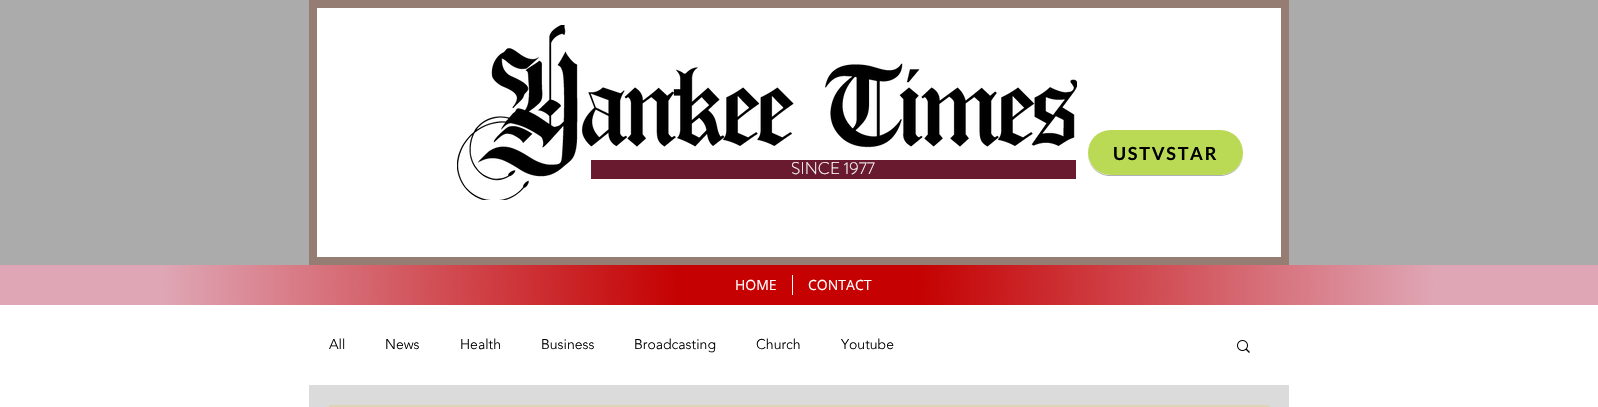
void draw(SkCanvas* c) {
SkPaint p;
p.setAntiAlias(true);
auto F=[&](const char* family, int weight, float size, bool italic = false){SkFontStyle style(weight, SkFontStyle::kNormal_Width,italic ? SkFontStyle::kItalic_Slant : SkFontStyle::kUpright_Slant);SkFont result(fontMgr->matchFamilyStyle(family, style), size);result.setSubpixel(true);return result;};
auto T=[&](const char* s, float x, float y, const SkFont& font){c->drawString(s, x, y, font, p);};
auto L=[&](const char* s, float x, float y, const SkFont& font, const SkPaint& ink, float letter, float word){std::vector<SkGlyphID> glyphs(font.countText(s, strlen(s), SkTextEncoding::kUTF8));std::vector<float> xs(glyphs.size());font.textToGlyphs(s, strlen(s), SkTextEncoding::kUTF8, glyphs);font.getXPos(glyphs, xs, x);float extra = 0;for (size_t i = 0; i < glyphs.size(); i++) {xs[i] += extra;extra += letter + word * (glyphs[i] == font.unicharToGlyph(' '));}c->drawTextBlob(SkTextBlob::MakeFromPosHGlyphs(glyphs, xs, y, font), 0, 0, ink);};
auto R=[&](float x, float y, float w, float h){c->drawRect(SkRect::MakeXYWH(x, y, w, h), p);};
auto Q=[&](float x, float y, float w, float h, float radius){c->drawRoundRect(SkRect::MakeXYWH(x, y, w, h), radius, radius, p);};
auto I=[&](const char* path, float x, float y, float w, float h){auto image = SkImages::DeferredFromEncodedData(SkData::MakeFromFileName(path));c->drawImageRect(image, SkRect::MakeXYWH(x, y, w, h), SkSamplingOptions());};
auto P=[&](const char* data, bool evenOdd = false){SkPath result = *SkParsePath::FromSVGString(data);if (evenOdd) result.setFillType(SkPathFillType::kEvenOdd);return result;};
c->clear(0xffffffff);
p.setColor(0xffababab);
R(0,0,1598,265);
p.setColor(0xffffffff);
c->drawRect(SkRect::MakeXYWH(313,4,972,257),p);
p.setStroke(true);
p.setStrokeWidth(8);
p.setColor(0xff957d74);
c->drawRect(SkRect::MakeXYWH(313,4,972,257),p);
p.setStroke(false);
p.setColor(0xff6a1a2f);
R(591,160,485,19);
auto f1 = F("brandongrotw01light",300,17);
p.setColor(0xffffffff);
T("SINCE 1977",791,174,f1);
I("1.png",457,25,620,175);
p.setColor(0xffafb3b6);
c->drawPath(P("M1088 153v1c0 12 10 22 22 22h110c13 0 23-10 23-22v-1c0 12-10 22-23 22h-110c-12 0-22-10-22-22z"),p);
p.setColor(0xffbada55);
Q(1088,130,155,45,22.5);
auto f2 = F("Lato",700,18);
p.setColor(0xff000000);
L("USTVSTAR",1113,160,f2,p,1.75,0);
{
const SkColor colors[] = {0xffc50101,0xffdfa7b6};
const float stops[] = {.15,.8};
p.setShader(SkGradientShader::MakeRadial({799,285}, 799, colors, stops, 2, SkTileMode::kClamp));
p.setAlpha(255);
}
R(0,265,1598,40);
auto f3 = F("Open Sans",400,14);
p.setShader(nullptr);
p.setColor(0xffffffff);
T("HOME",735,290,f3);
R(792,275,1,20);
T("CONTACT",808,290,f3);
p.setColor(0xffdbdbdb);
R(309,385,980,22);
auto f4 = F("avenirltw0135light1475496",300,14);
p.setColor(0xff000000);
T("All",329,349,f4);
T("News",385,349,f4);
T("Health",460,349,f4);
T("Business",541,349,f4);
T("Broadcasting",634,349,f4);
T("Church",756,349,f4);
T("Youtube",841,349,f4);
I("2.png",1237,340,13,13);
p.setColor(0xffdfd5b6);
R(329,405,940,2);
}
